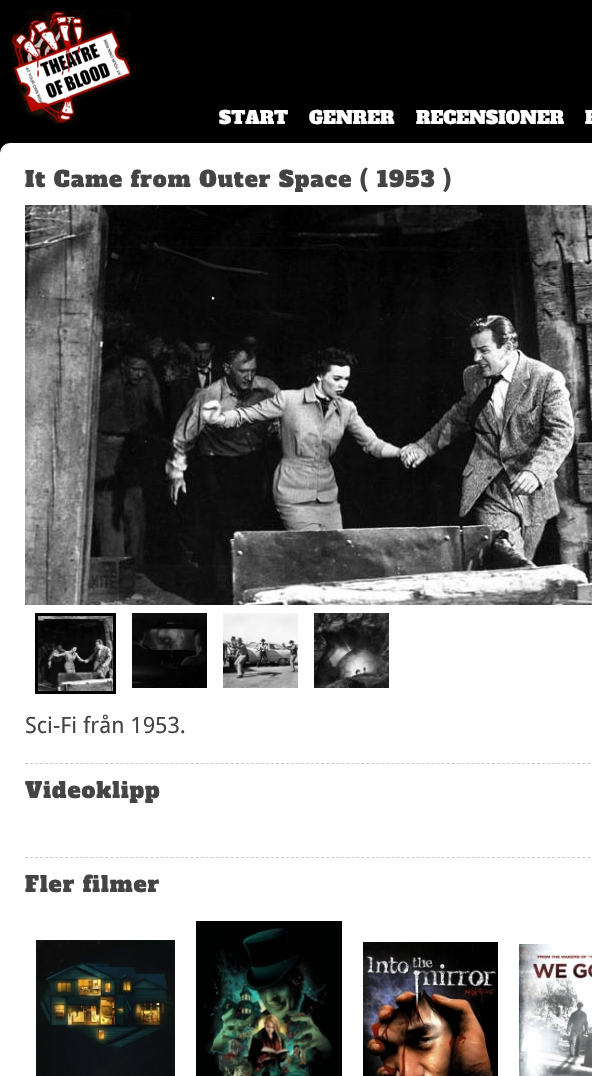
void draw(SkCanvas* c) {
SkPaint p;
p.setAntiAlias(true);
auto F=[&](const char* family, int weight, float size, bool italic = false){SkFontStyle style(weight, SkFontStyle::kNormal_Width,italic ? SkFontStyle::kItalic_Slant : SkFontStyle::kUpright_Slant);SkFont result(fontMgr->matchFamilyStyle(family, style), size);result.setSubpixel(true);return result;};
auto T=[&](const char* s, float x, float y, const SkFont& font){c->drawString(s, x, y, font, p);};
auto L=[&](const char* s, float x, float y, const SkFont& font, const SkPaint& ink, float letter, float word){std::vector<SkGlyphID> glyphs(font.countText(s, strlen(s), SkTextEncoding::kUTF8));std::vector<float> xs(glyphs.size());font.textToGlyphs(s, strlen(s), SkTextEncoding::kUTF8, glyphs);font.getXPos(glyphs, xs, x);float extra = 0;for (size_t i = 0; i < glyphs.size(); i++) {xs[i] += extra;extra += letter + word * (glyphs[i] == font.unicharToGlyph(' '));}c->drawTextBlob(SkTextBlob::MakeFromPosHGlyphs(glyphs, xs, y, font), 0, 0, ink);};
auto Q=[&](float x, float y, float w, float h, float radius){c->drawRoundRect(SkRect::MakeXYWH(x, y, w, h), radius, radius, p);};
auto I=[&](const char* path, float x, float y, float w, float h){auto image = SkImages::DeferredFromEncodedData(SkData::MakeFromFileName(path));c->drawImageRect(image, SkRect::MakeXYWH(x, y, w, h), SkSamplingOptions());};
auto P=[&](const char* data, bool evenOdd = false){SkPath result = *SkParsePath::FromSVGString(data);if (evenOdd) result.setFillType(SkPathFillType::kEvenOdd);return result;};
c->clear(0xff000000);
I("1.png",9,10,121,115);
auto f1 = F("Alfa Slab One",400,18);
p.setColor(0xffffffff);
T("START",219,124,f1);
T("GENRER",309,124,f1);
T("RECENSIONER",416,124,f1);
T("F",585,124,f1);
Q(0,143,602,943,10);
auto f2 = F("Alfa Slab One",400,22);
p.setColor(0xff444444);
L("It Came from Outer Space ( 1953 )",25,187,f2,p,1,0);
I("2.png",25,205,567,400);
p.setStroke(true);
p.setStrokeWidth(3);
p.setColor(0xff000000);
c->drawRect(SkRect::MakeXYWH(36.5,614.5,78,78),p);
I("3.png",38,616,75,75);
I("4.png",132,613,75,75);
I("5.png",223,613,75,75);
I("6.png",314,613,75,75);
auto f3 = F("Droid Sans",400,22.5);
p.setStroke(false);
p.setColor(0xff444444);
T("Sci-Fi från 1953.",25,733,f3);
p.setStroke(true);
p.setStrokeWidth(1);
p.setColor(0xffcccccc);
p.setPathEffect(SkDashPathEffect::Make({{3,2.02f}}, 0));
c->drawPath(P("M25 763.5h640"),p);
p.setPathEffect(nullptr);
p.setStroke(false);
p.setColor(0xff444444);
L("Videoklipp",25,798,f2,p,1,0);
p.setStroke(true);
p.setColor(0xffcccccc);
p.setPathEffect(SkDashPathEffect::Make({{3,2.02f}}, 0));
c->drawPath(P("M25 857.5h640"),p);
p.setPathEffect(nullptr);
p.setStroke(false);
p.setColor(0xff444444);
L("Fler filmer",25,892,f2,p,1,0);
I("7.png",36,940,139,136);
I("8.png",196,921,146,155);
I("9.png",363,942,135,134);
I("10.png",519,944,73,132);
}
